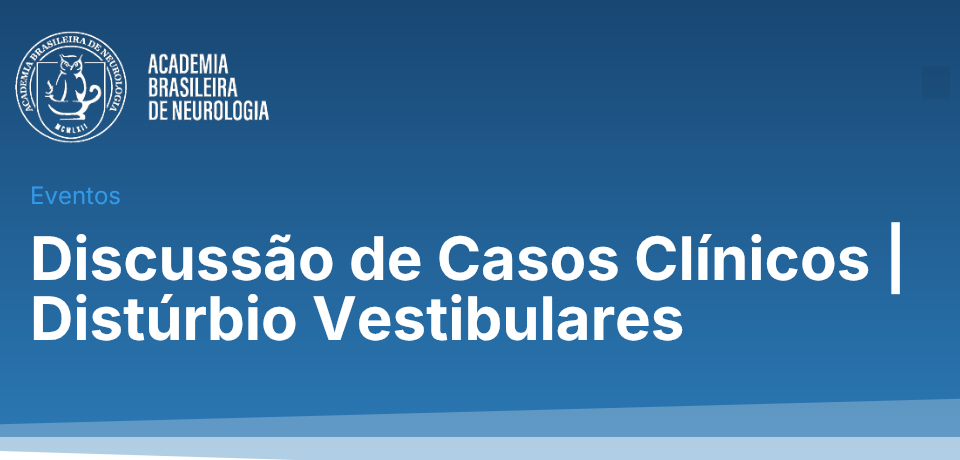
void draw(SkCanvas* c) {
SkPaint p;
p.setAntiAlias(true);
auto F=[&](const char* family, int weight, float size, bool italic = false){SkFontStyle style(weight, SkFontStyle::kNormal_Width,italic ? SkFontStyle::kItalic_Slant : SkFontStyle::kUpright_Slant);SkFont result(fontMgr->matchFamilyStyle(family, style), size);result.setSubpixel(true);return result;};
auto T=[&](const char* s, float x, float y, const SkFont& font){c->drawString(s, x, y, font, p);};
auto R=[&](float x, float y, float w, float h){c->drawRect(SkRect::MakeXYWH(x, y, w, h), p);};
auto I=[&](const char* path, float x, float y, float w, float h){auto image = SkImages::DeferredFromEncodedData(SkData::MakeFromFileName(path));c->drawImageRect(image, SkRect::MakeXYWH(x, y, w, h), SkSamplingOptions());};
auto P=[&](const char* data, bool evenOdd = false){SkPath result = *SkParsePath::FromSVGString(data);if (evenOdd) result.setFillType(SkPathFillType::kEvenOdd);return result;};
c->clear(0xffffffff);
{
const SkColor colors[] = {0xff184672,0xff2d7ebc};
const float stops[] = {0,1};
const SkPoint ends[] = {{480,-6}, {480,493}};
p.setShader(SkGradientShader::MakeLinear(ends, colors, stops, 2, SkTileMode::kClamp));
p.setAlpha(255);
}
R(0,0,960,437);
I("1.png",15,31,255,113);
p.setShader(nullptr);
p.setColor(0x0d000000);
R(922,66,28,33);
{
const SkColor colors[] = {0xff8ca3b9,0xff96bfde};
const float stops[] = {0,1};
const SkPoint ends[] = {{480,-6}, {480,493}};
p.setShader(SkGradientShader::MakeLinear(ends, colors, stops, 2, SkTileMode::kClamp));
p.setAlpha(255);
}
R(0,437,960,23);
auto f1 = F("Inter",400,24);
p.setShader(nullptr);
p.setColor(0xff3399e7);
T("Eventos",30,204,f1);
auto f2 = F("Inter",700,60);
p.setColor(0xffffffff);
T("Discussão de Casos Clínicos |",30,280,f2);
T("Distúrbio Vestibulares",30,340,f2);
c->drawPath(P("M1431 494h-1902v-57z"),p);
p.setColor(0x40ffffff);
c->drawPath(P("M-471 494h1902v-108l-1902 51z"),p);
}
